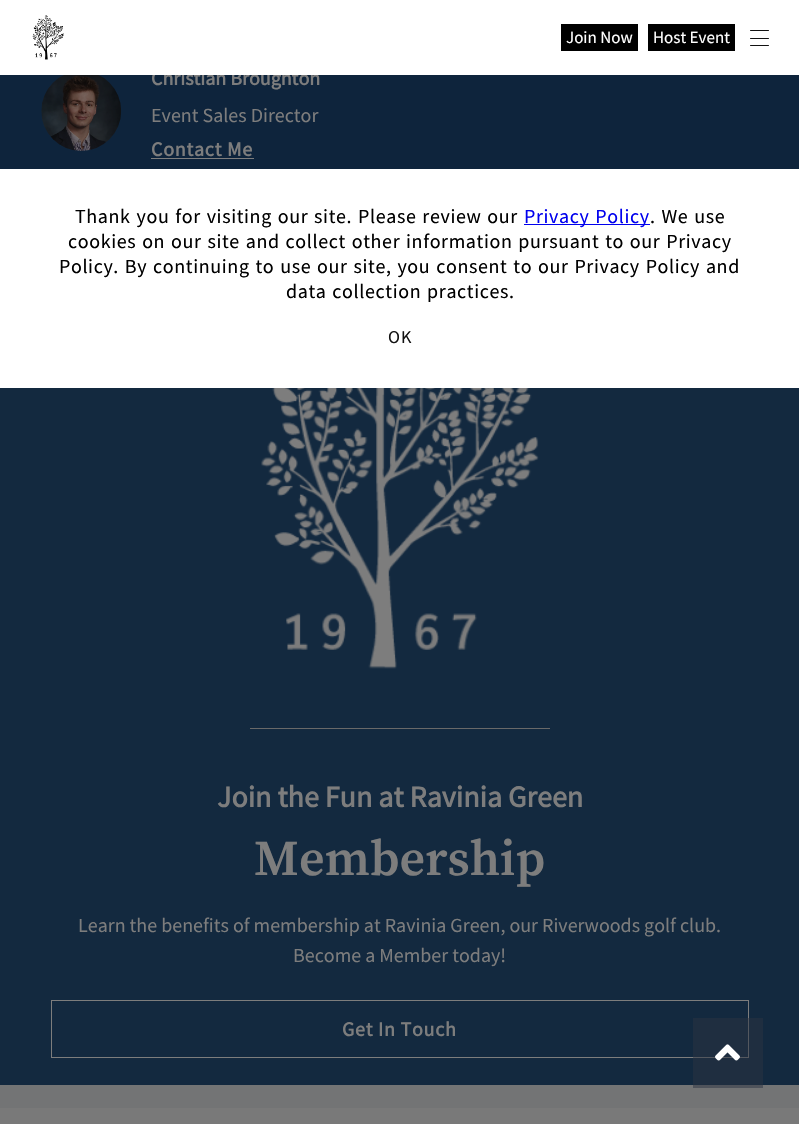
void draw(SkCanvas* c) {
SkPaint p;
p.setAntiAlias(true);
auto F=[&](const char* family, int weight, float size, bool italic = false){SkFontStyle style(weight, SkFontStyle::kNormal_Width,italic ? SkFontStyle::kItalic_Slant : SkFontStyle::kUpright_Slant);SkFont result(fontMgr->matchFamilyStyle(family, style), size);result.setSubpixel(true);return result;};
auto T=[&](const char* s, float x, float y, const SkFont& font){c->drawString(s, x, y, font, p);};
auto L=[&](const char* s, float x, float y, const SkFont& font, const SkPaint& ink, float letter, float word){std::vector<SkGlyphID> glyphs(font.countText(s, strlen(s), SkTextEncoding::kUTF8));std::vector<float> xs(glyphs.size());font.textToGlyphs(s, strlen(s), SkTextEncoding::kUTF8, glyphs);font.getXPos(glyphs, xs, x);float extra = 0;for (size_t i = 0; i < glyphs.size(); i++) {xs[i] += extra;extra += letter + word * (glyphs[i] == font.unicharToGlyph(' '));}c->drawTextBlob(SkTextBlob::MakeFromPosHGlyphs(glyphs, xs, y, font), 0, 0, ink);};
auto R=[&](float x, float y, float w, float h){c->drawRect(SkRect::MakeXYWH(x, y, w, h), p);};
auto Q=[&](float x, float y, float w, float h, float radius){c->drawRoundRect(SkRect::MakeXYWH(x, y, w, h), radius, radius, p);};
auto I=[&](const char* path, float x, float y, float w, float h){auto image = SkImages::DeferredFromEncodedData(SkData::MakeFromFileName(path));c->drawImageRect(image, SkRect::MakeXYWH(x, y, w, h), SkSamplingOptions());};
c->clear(0xff797979);
p.setColor(0xff0e243c);
R(0,75,799,94);
auto f1 = F("Source Sans Pro",700,20);
p.setColor(0xff7d7d7d);
T("Christian Broughton",151,85,f1);
p.setColor(0xffffffff);
R(0,0,799,75);
I("1.png",32,15,32,45);
p.setColor(0xff000000);
R(561,24,77,27);
auto f2 = F("Source Sans Pro",400,17);
p.setColor(0xffffffff);
T("Join Now",566,43,f2);
p.setColor(0xff000000);
R(648,24,87,27);
p.setColor(0xffffffff);
T("Host Event",653,43,f2);
p.setColor(0xff121212);
Q(750,30,19,1,.5);
Q(750,38,19,1,.5);
Q(750,45,19,1,.5);
I("2.png",41,75,81,76);
auto f3 = F("Source Sans Pro",400,20);
p.setColor(0xff7d7d7d);
T("Event Sales Director",151,122,f3);
L("Contact Me",151,156,f1,p,.75,0);
R(151,158,103,1);
p.setColor(0xff13293f);
R(0,388,799,697);
p.setColor(0xff737475);
R(0,1085,799,23);
p.setColor(0xff696969);
R(250,728,300,1);
I("3.png",261,388,278,281);
auto f4 = F("Source Sans Pro",700,30);
p.setColor(0xff7d7d7d);
T("Join the Fun at Ravinia Green",217,807,f4);
auto f5 = F("Source Serif Pro",600,50);
T("Membership",254,875,f5);
T("Learn the benefits of membership at Ravinia Green, our Riverwoods golf club.",78,932,f3);
T("Become a Member today!",293,962,f3);
p.setStroke(true);
p.setStrokeWidth(1);
c->drawRect(SkRect::MakeXYWH(51.5,1000.5,697,57),p);
p.setStroke(false);
L("Get In Touch",342,1036,f1,p,.75,0);
p.setColor(0xffffffff);
R(0,169,799,219);
p.setColor(0xff000000);
L("Thank you for visiting our site. Please review our",75,223,f3,p,.62,1.25);
p.setColor(0xff0000ee);
R(524,224,126,1);
L("Privacy Policy",524,223,f3,p,.62,1.25);
p.setColor(0xff000000);
L(". We use",650,223,f3,p,.62,1.25);
L("cookies on our site and collect other information pursuant to our Privacy",68,248,f3,p,.62,1.25);
L("Policy. By continuing to use our site, you consent to our Privacy Policy and",59,273,f3,p,.62,1.25);
L("data collection practices.",286,298,f3,p,.62,1.25);
auto f6 = F("Source Sans Pro",400,18);
p.setColor(0xff121212);
L("OK",388,343,f6,p,1,0);
p.setColor(0x802a313f);
R(693,1018,70,70);
I("4.png",715,1044,25,17);
}
